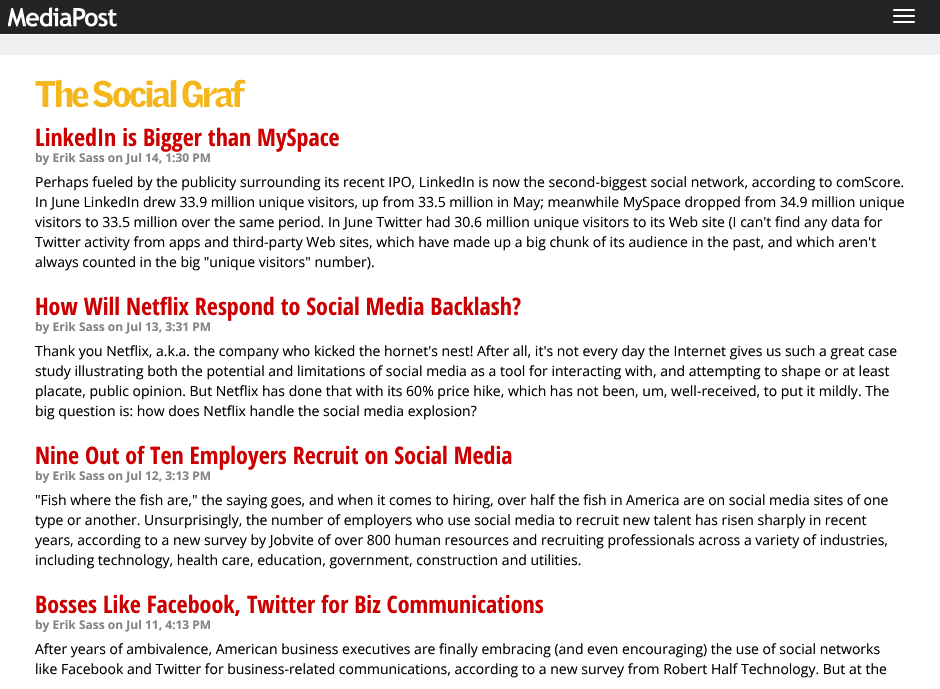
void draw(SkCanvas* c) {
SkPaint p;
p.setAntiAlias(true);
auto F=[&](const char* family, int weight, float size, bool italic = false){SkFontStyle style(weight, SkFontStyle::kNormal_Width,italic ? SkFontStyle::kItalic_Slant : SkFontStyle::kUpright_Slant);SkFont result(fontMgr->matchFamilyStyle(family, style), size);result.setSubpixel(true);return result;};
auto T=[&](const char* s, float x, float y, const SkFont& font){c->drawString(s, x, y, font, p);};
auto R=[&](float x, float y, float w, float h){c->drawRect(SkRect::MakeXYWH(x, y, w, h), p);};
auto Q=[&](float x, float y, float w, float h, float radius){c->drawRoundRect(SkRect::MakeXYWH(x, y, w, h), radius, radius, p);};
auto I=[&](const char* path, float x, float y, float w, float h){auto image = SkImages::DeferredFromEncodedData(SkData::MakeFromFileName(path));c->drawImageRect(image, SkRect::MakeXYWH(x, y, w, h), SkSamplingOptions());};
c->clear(0xffffffff);
p.setColor(0xff242424);
R(0,0,940,34);
I("1.png",8,7,109,20);
p.setColor(0xffffffff);
Q(893,9,22,2,1);
Q(893,15,22,2,1);
Q(893,21,22,2,1);
p.setColor(0xffefefef);
R(0,35,940,20);
I("2.png",35,79,211,29);
auto f1 = F("Open Sans Condensed",700,24);
p.setColor(0xffcc0000);
T("LinkedIn is Bigger than MySpace",35,146,f1);
auto f2 = F("Open Sans",700,12);
p.setColor(0xff858484);
T("by Erik Sass on Jul 14, 1:30 PM",35,162,f2);
auto f3 = F("Open Sans",400,14);
p.setColor(0xff000000);
T("Perhaps fueled by the publicity surrounding its recent IPO, LinkedIn is now the second-biggest social network, according to comScore.",35,187,f3);
T("In June LinkedIn drew 33.9 million unique visitors, up from 33.5 million in May; meanwhile MySpace dropped from 34.9 million unique",35,207,f3);
T("visitors to 33.5 million over the same period. In June Twitter had 30.6 million unique visitors to its Web site (I can't find any data for",35,227,f3);
T("Twitter activity from apps and third-party Web sites, which have made up a big chunk of its audience in the past, and which aren't",35,247,f3);
T("always counted in the big \"unique visitors\" number).",35,267,f3);
p.setColor(0xffcc0000);
T("How Will Netflix Respond to Social Media Backlash?",35,315,f1);
p.setColor(0xff858484);
T("by Erik Sass on Jul 13, 3:31 PM",35,331,f2);
p.setColor(0xff000000);
T("Thank you Netflix, a.k.a. the company who kicked the hornet's nest! After all, it's not every day the Internet gives us such a great case",35,356,f3);
T("study illustrating both the potential and limitations of social media as a tool for interacting with, and attempting to shape or at least",35,376,f3);
T("placate, public opinion. But Netflix has done that with its 60% price hike, which has not been, um, well-received, to put it mildly. The",35,396,f3);
T("big question is: how does Netflix handle the social media explosion?",35,416,f3);
p.setColor(0xffcc0000);
T("Nine Out of Ten Employers Recruit on Social Media",35,464,f1);
p.setColor(0xff858484);
T("by Erik Sass on Jul 12, 3:13 PM",35,480,f2);
p.setColor(0xff000000);
T("\"Fish where the fish are,\" the saying goes, and when it comes to hiring, over half the fish in America are on social media sites of one",35,505,f3);
T("type or another. Unsurprisingly, the number of employers who use social media to recruit new talent has risen sharply in recent",35,525,f3);
T("years, according to a new survey by Jobvite of over 800 human resources and recruiting professionals across a variety of industries,",35,545,f3);
T("including technology, health care, education, government, construction and utilities.",35,565,f3);
p.setColor(0xffcc0000);
T("Bosses Like Facebook, Twitter for Biz Communications",35,613,f1);
p.setColor(0xff858484);
T("by Erik Sass on Jul 11, 4:13 PM",35,629,f2);
p.setColor(0xff000000);
T("After years of ambivalence, American business executives are finally embracing (and even encouraging) the use of social networks",35,654,f3);
T("like Facebook and Twitter for business-related communications, according to a new survey from Robert Half Technology. But at the",35,674,f3);
}
